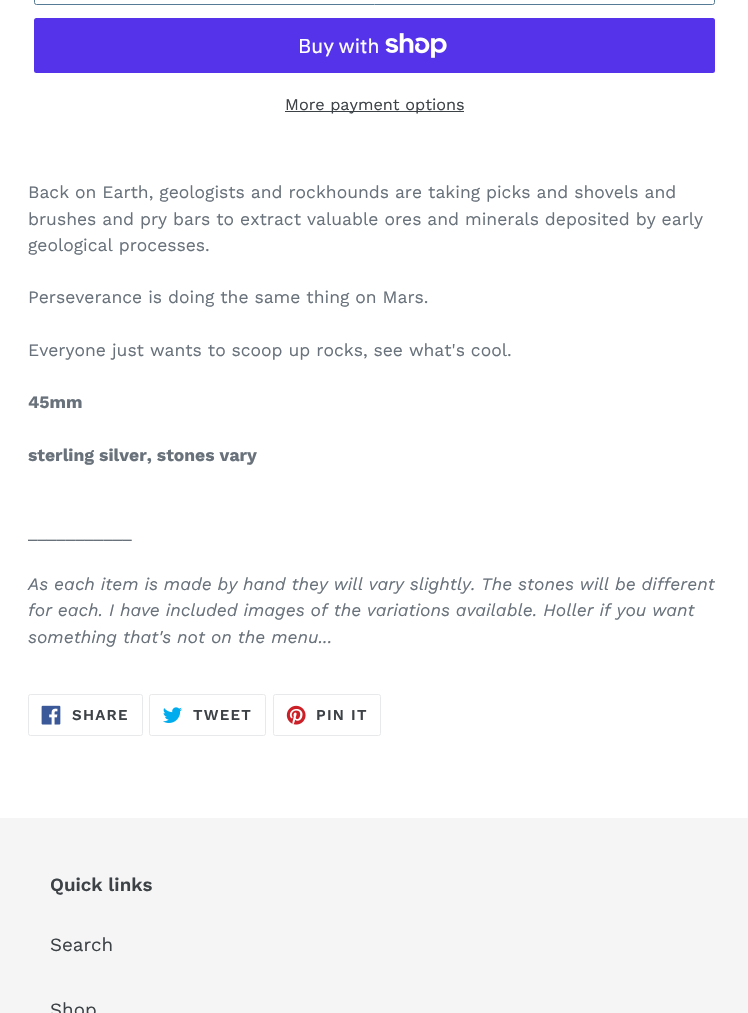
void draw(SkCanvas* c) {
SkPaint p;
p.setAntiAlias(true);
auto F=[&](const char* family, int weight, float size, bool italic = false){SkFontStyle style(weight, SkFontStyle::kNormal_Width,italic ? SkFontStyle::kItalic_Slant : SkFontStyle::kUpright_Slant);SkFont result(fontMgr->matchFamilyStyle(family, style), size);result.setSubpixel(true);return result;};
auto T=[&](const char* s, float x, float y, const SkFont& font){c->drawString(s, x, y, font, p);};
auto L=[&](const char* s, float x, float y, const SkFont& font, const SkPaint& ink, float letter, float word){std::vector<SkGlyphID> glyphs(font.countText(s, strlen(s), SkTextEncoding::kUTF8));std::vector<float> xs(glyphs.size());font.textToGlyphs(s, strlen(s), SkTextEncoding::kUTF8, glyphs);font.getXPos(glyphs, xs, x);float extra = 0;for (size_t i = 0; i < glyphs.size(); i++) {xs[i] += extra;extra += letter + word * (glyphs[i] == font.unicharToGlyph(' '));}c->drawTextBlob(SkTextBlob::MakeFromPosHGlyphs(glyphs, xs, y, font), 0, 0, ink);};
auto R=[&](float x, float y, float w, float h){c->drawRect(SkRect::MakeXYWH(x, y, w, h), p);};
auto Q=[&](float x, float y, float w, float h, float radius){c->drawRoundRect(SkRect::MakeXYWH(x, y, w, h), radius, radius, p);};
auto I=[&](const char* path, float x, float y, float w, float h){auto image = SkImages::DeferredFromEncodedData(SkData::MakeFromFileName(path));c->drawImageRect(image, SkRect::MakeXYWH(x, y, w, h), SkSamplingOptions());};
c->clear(0xffffffff);
p.setStroke(true);
p.setStrokeWidth(1);
p.setColor(0xff557b97);
c->drawRoundRect(SkRect::MakeXYWH(34.5,-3.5,680,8),2,2,p);
p.setStroke(false);
p.setColor(0xff5433eb);
Q(34,18,681,55,2.5);
auto f1 = F("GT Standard",400,20);
p.setColor(0xffffffff);
T("Buy with",298,53,f1);
I("1.png",385,33,62,25);
p.setColor(0xff3d4246);
R(285,111,179,1);
auto f2 = F("Work Sans",400,16.25);
T("More payment options",285,110,f2);
auto f3 = F("Work Sans",400,17.5);
p.setColor(0xff69727b);
T("Back on Earth, geologists and rockhounds are taking picks and shovels and",28,198,f3);
T("brushes and pry bars to extract valuable ores and minerals deposited by early",28,225,f3);
T("geological processes.",28,251,f3);
T("Perseverance is doing the same thing on Mars.",28,303,f3);
T("Everyone just wants to scoop up rocks, see what's cool.",28,356,f3);
auto f4 = F("Work Sans",700,17.5);
T("45mm",28,408,f4);
T("sterling silver, stones vary",28,461,f4);
T("___________",28,538,f3);
auto f5 = F("Work Sans",400,17.5,true);
T("As each item is made by hand they will vary slightly. The stones will be different",28,590,f5);
T("for each. I have included images of the variations available. Holler if you want",28,616,f5);
T("something that's not on the menu...",28,643,f5);
p.setStroke(true);
p.setColor(0xffe8e9eb);
c->drawRoundRect(SkRect::MakeXYWH(28.5,694.5,114,41),2,2,p);
I("2.png",41,705,20,20);
auto f6 = F("Work Sans",600,15);
p.setStroke(false);
p.setColor(0xff3d4246);
L("SHARE",72,720,f6,p,1.25,0);
p.setStroke(true);
p.setColor(0xffe8e9eb);
c->drawRoundRect(SkRect::MakeXYWH(149.5,694.5,116,41),2,2,p);
I("3.png",163,707,19,16);
p.setStroke(false);
p.setColor(0xff3d4246);
L("TWEET",193,720,f6,p,1.25,0);
p.setStroke(true);
p.setColor(0xffe8e9eb);
c->drawRoundRect(SkRect::MakeXYWH(273.5,694.5,107,41),2,2,p);
I("4.png",286,705,20,20);
p.setStroke(false);
p.setColor(0xff3d4246);
L("PIN IT",316,720,f6,p,1.25,0);
p.setColor(0xfff5f5f5);
R(0,818,748,195);
auto f7 = F("Work Sans",600,18.75);
p.setColor(0xff3d4246);
T("Quick links",50,891,f7);
auto f8 = F("Work Sans",400,18.75);
T("Search",50,951,f8);
T("Shop",50,1016,f8);
}
